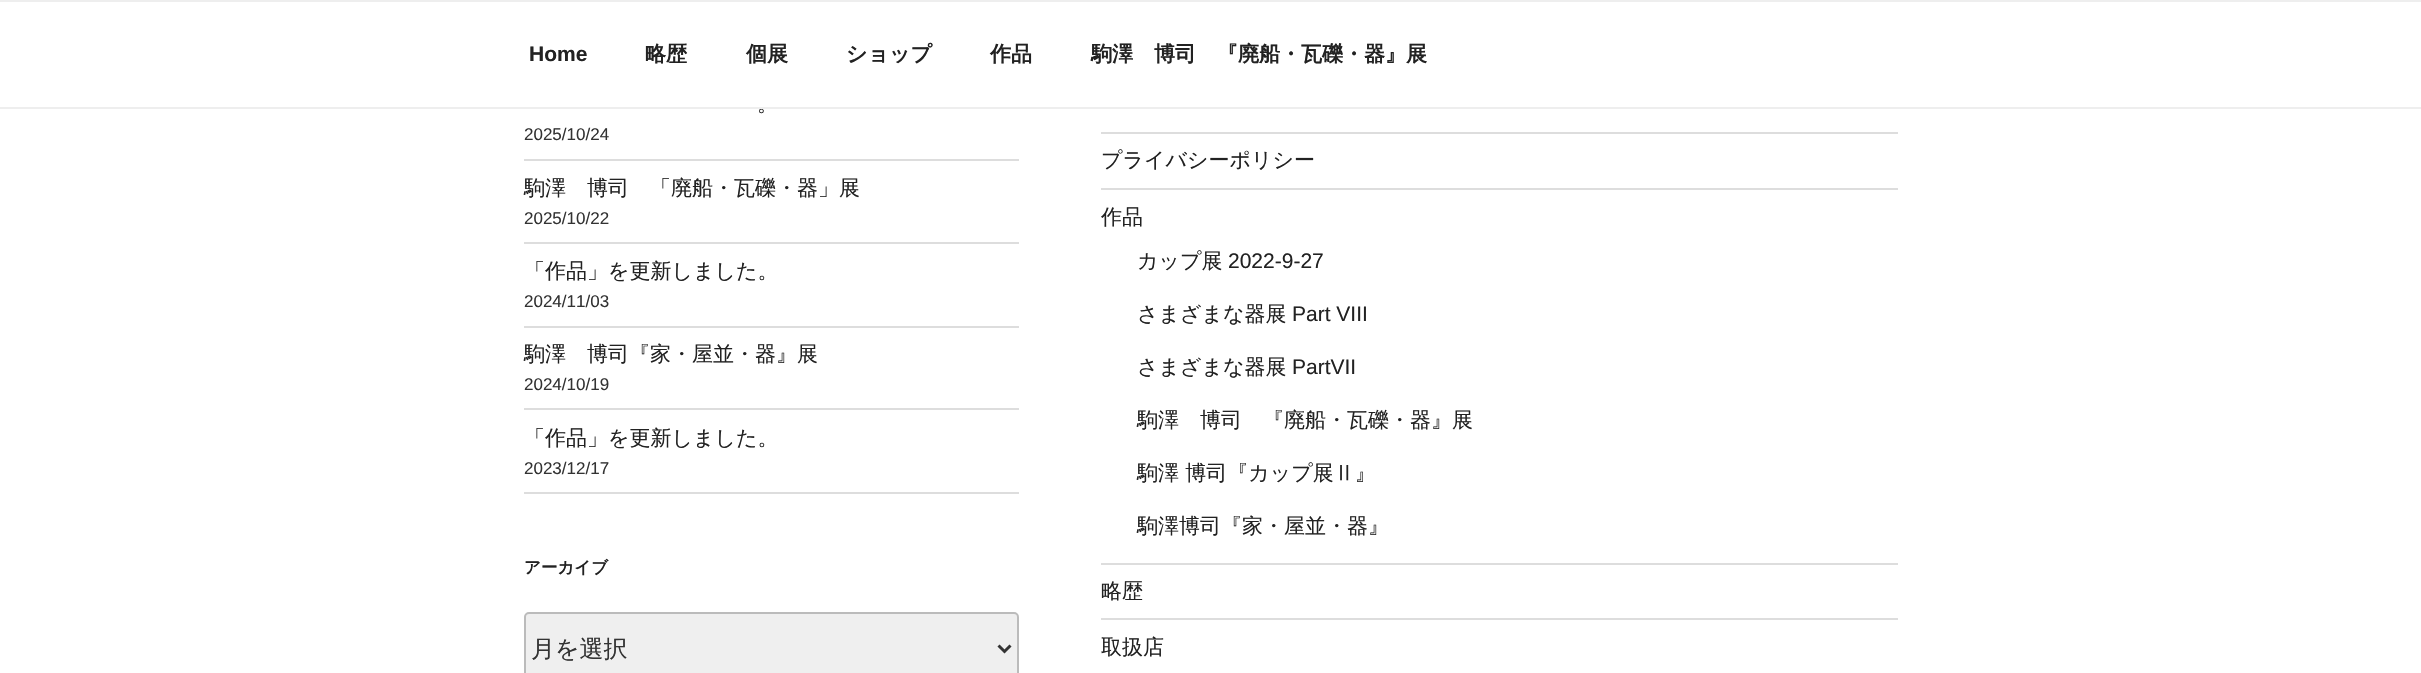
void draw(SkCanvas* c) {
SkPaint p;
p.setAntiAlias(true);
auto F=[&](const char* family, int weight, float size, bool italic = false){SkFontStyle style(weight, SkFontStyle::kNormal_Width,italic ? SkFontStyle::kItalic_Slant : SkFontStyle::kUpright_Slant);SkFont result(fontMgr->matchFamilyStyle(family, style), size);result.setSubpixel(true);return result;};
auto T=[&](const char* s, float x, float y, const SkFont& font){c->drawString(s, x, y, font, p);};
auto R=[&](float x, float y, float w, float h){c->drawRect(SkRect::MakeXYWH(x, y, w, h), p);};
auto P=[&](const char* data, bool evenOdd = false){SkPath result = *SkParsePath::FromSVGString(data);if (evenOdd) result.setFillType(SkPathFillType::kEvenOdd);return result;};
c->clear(0xffffffff);
p.setColor(0xffeeeeee);
R(0,0,2421,2);
auto f1 = F("WenQuanYi Zen Hei",500,21);
p.setColor(0xff222222);
T("。",757,111,f1);
p.setColor(0xffeeeeee);
R(0,107,2421,2);
auto f2 = F("Liberation Sans",700,21);
p.setColor(0xff222222);
T("Home",529,61,f2);
auto f3 = F("WenQuanYi Zen Hei",700,21);
T("略歴",645,61,f3);
T("個展",746,61,f3);
T("ショップ",846,61,f3);
T("作品",990,61,f3);
T("駒澤　博司　『廃船・瓦礫・器』展",1091,61,f3);
p.setColor(0xffdddddd);
R(524,159,495,2);
auto f4 = F("Liberation Sans",400,17);
p.setColor(0xff333333);
T("2025/10/24",524,140,f4);
p.setColor(0xffdddddd);
R(524,242,495,2);
p.setColor(0xff222222);
T("駒澤　博司　「廃船・瓦礫・器」展",524,195,f1);
p.setColor(0xff333333);
T("2025/10/22",524,224,f4);
p.setColor(0xffdddddd);
R(524,326,495,2);
p.setColor(0xff222222);
T("「作品」を更新しました。",524,278,f1);
p.setColor(0xff333333);
T("2024/11/03",524,307,f4);
p.setColor(0xffdddddd);
R(524,408,495,2);
p.setColor(0xff222222);
T("駒澤　博司『家・屋並・器』展",524,361,f1);
p.setColor(0xff333333);
T("2024/10/19",524,390,f4);
p.setColor(0xffdddddd);
R(524,492,495,2);
p.setColor(0xff222222);
T("「作品」を更新しました。",524,445,f1);
p.setColor(0xff333333);
T("2023/12/17",524,474,f4);
auto f5 = F("WenQuanYi Zen Hei",700,16.5);
p.setColor(0xff222222);
T("アーカイブ",524,573,f5);
p.setColor(0xffefefef);
c->drawRoundRect(SkRect::MakeXYWH(525,613,493,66),4,4,p);
p.setStroke(true);
p.setStrokeWidth(2);
p.setColor(0xffbbbbbb);
c->drawRoundRect(SkRect::MakeXYWH(525,613,493,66),4,4,p);
p.setStrokeWidth(3);
p.setColor(0xff333333);
c->drawPath(P("M998.5 645.5l6 6l6-6"),p);
auto f6 = F("WenQuanYi Zen Hei",500,24);
p.setStroke(false);
T("月を選択",531,657,f6);
p.setColor(0xffdddddd);
R(1101,132,797,2);
R(1101,188,797,2);
p.setColor(0xff222222);
T("プライバシーポリシー",1101,167,f1);
p.setColor(0xffdddddd);
R(1101,563,797,2);
p.setColor(0xff222222);
T("作品",1101,224,f1);
T("カップ展",1137,268,f1);
auto f7 = F("Liberation Sans",400,21);
T("2022-9-27",1228,268,f7);
T("さまざまな器展",1137,321,f1);
T("Part VIII",1292,321,f7);
T("さまざまな器展",1137,374,f1);
T("PartVII",1292,374,f7);
T("駒澤　博司　『廃船・瓦礫・器』展",1137,427,f1);
T("駒澤 博司『カップ展Ⅱ』",1137,480,f1);
T("駒澤博司『家・屋並・器』",1137,533,f1);
p.setColor(0xffdddddd);
R(1101,618,797,2);
p.setColor(0xff222222);
T("略歴",1101,598,f1);
T("取扱店",1101,654,f1);
}
